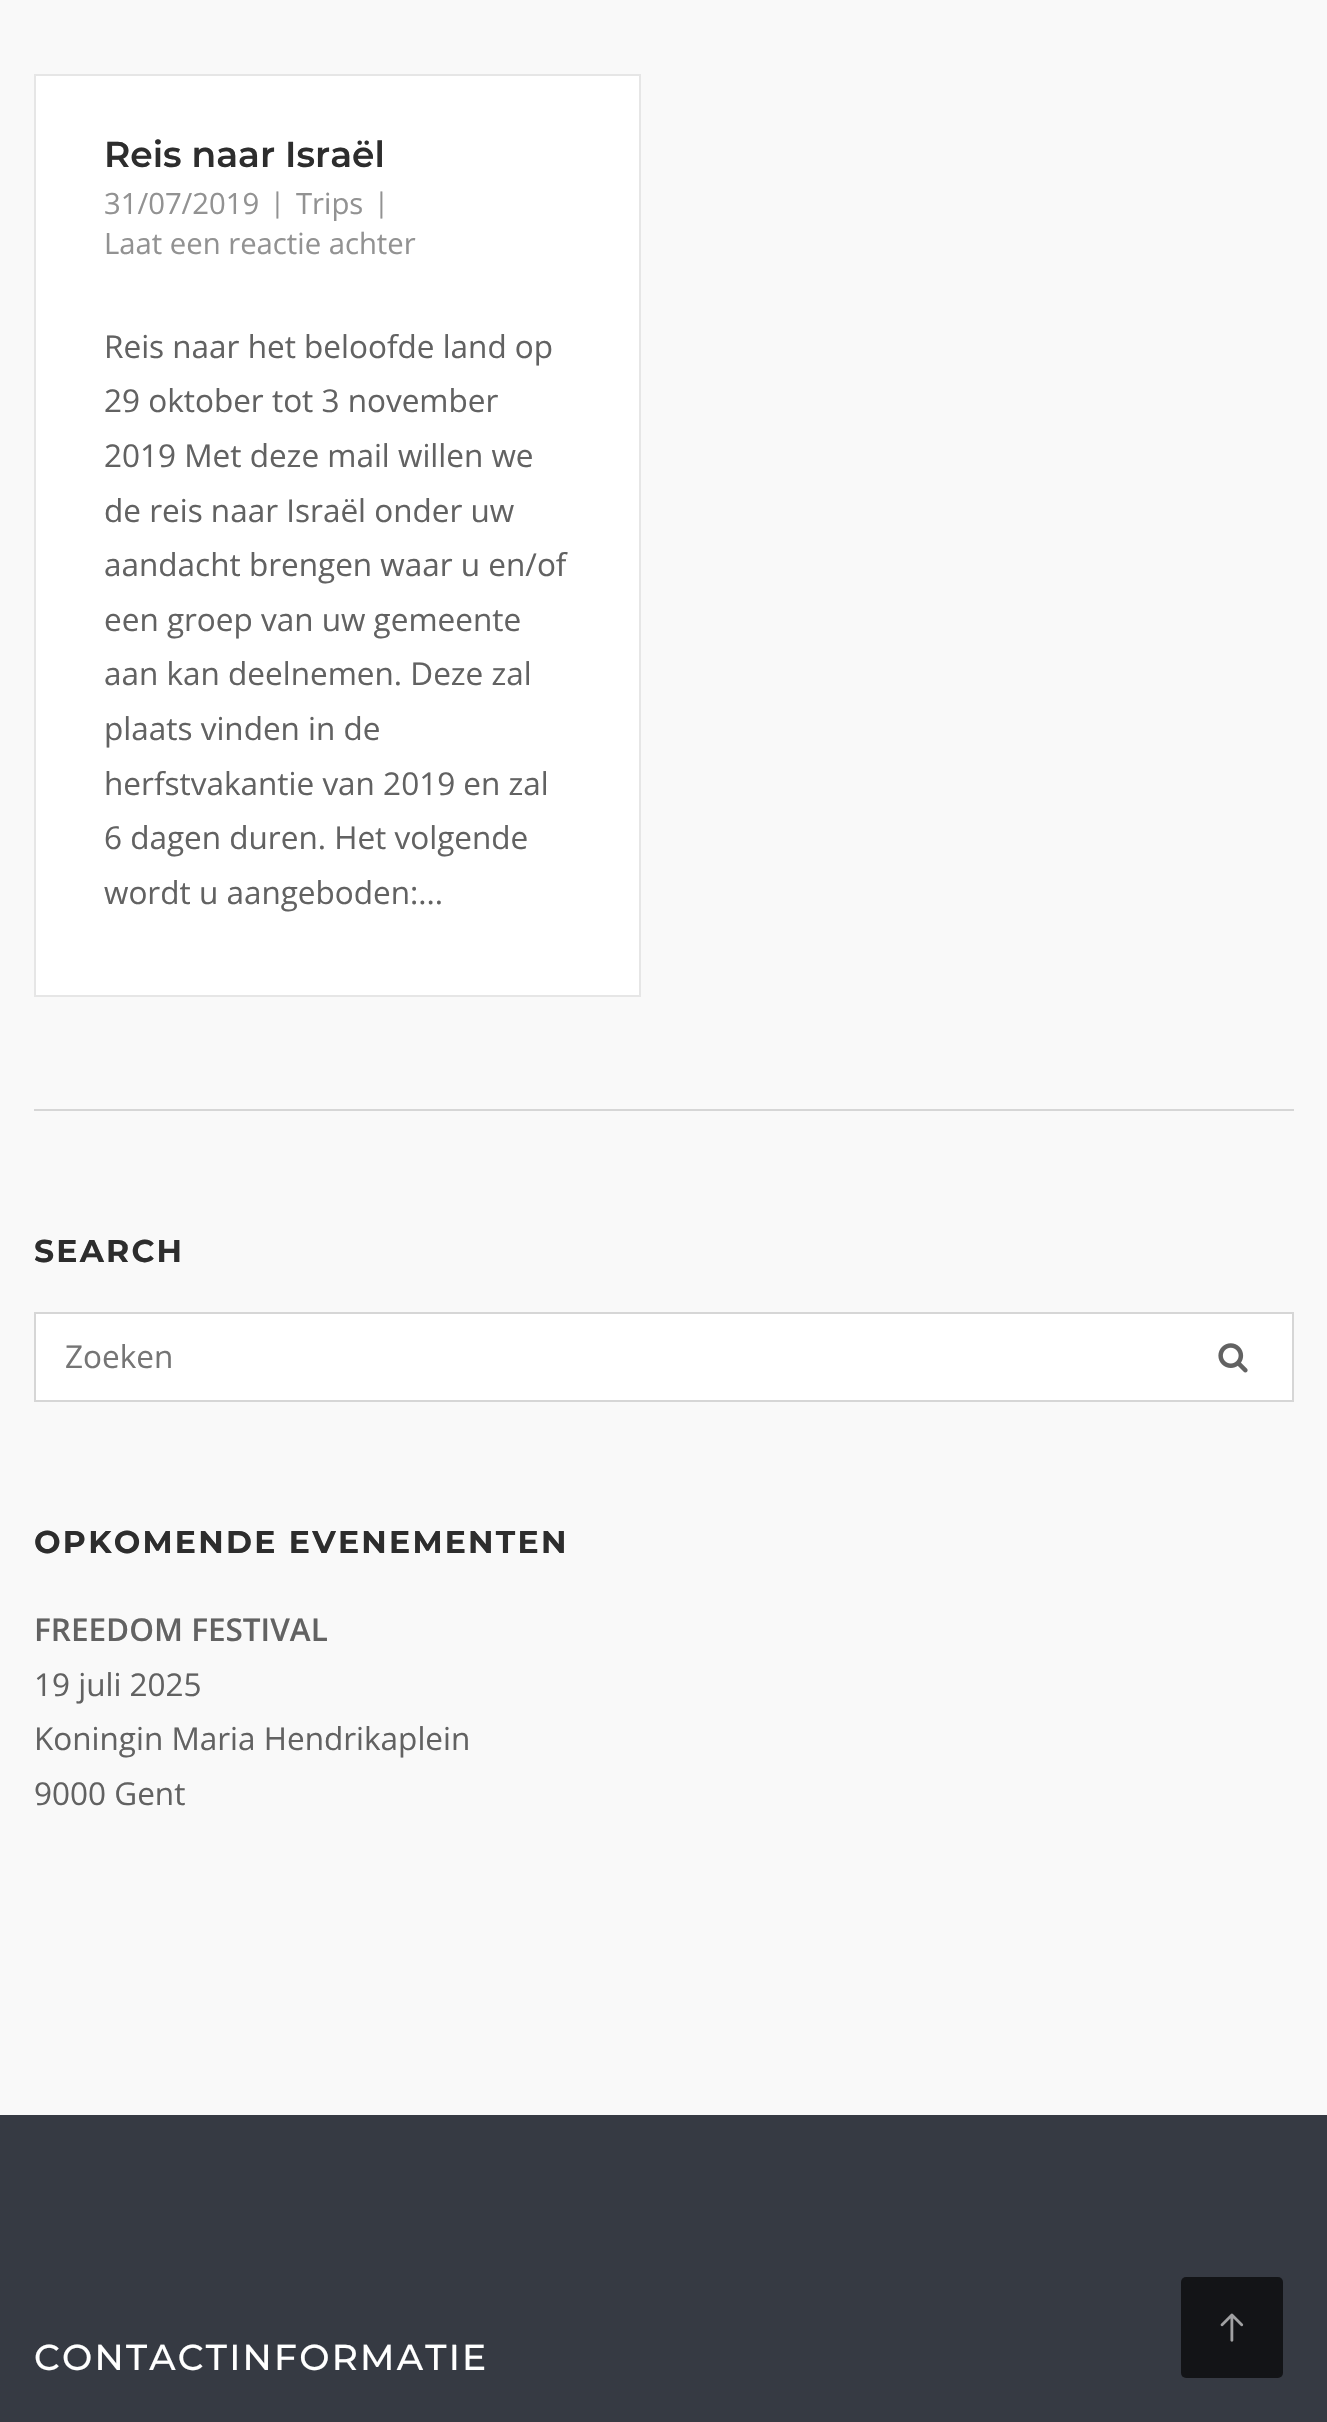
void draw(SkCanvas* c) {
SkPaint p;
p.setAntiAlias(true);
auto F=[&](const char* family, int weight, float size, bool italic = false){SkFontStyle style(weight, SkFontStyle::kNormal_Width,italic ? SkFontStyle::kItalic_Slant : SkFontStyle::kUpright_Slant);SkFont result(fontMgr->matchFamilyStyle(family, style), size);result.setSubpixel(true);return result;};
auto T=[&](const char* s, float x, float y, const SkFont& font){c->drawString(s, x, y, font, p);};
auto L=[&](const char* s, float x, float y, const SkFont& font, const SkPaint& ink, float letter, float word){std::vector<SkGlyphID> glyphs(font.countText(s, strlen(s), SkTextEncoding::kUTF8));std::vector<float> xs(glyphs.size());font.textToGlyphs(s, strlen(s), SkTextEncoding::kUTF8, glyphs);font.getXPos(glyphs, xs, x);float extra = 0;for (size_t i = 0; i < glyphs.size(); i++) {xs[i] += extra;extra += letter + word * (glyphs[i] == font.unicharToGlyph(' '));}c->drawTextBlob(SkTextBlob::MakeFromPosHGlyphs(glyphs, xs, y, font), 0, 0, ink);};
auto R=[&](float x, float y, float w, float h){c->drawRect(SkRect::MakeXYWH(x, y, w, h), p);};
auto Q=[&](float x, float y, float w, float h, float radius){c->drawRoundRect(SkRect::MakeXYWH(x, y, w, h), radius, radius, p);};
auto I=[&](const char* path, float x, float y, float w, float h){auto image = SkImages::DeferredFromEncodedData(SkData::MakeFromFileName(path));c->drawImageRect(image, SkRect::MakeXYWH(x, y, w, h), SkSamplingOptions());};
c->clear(0xfff9f9f9);
p.setColor(0xffffffff);
c->drawRect(SkRect::MakeXYWH(35,75,605,921),p);
p.setStroke(true);
p.setStrokeWidth(2);
p.setColor(0xffe6e6e6);
c->drawRect(SkRect::MakeXYWH(35,75,605,921),p);
auto f1 = F("Montserrat",600,36);
p.setStroke(false);
p.setColor(0xff2d2d2d);
T("Reis naar Israël",104,167,f1);
auto f2 = F("Open Sans",400,29.25);
p.setColor(0xff929292);
T("31/07/2019",104,214,f2);
auto f3 = F("Open Sans",400,27);
T("|",270,212,f3);
T("Trips",296,214,f2);
T("|",374,212,f3);
T("Laat een reactie achter",104,254,f2);
auto f4 = F("Open Sans",400,31.5);
p.setColor(0xff626262);
T("Reis naar het beloofde land op",104,358,f4);
T("29 oktober tot 3 november",104,412,f4);
T("2019 Met deze mail willen we",104,467,f4);
T("de reis naar Israël onder uw",104,522,f4);
T("aandacht brengen waar u en/of",104,576,f4);
T("een groep van uw gemeente",104,631,f4);
T("aan kan deelnemen. Deze zal",104,685,f4);
T("plaats vinden in de",104,740,f4);
T("herfstvakantie van 2019 en zal",104,795,f4);
T("6 dagen duren. Het volgende",104,849,f4);
T("wordt u aangeboden:...",104,904,f4);
p.setColor(0xffd6d6d6);
R(34,1109,1260,2);
auto f5 = F("Montserrat",700,31.5);
p.setColor(0xff2d2d2d);
L("SEARCH",34,1262,f5,p,2.25,0);
p.setColor(0xffffffff);
c->drawRect(SkRect::MakeXYWH(35,1313,1258,88),p);
p.setStroke(true);
p.setColor(0xffd6d6d6);
c->drawRect(SkRect::MakeXYWH(35,1313,1258,88),p);
p.setStroke(false);
p.setColor(0xff757575);
T("Zoeken",65,1368,f4);
I("1.png",1218,1343,30,30);
p.setColor(0xff2d2d2d);
L("OPKOMENDE EVENEMENTEN",34,1553,f5,p,2.25,0);
auto f6 = F("Open Sans",600,31.5);
p.setColor(0xff626262);
T("FREEDOM FESTIVAL",34,1641,f6);
T("19 juli 2025",34,1696,f4);
T("Koningin Maria Hendrikaplein",34,1750,f4);
T("9000 Gent",34,1805,f4);
p.setColor(0xff363a43);
R(0,2115,1327,307);
auto f7 = F("Montserrat",500,36);
p.setColor(0xffffffff);
L("CONTACTINFORMATIE",34,2370,f7,p,2.25,0);
p.setColor(0xff131417);
Q(1181,2277,102,101,5);
I("2.png",1220,2313,24,29);
}
